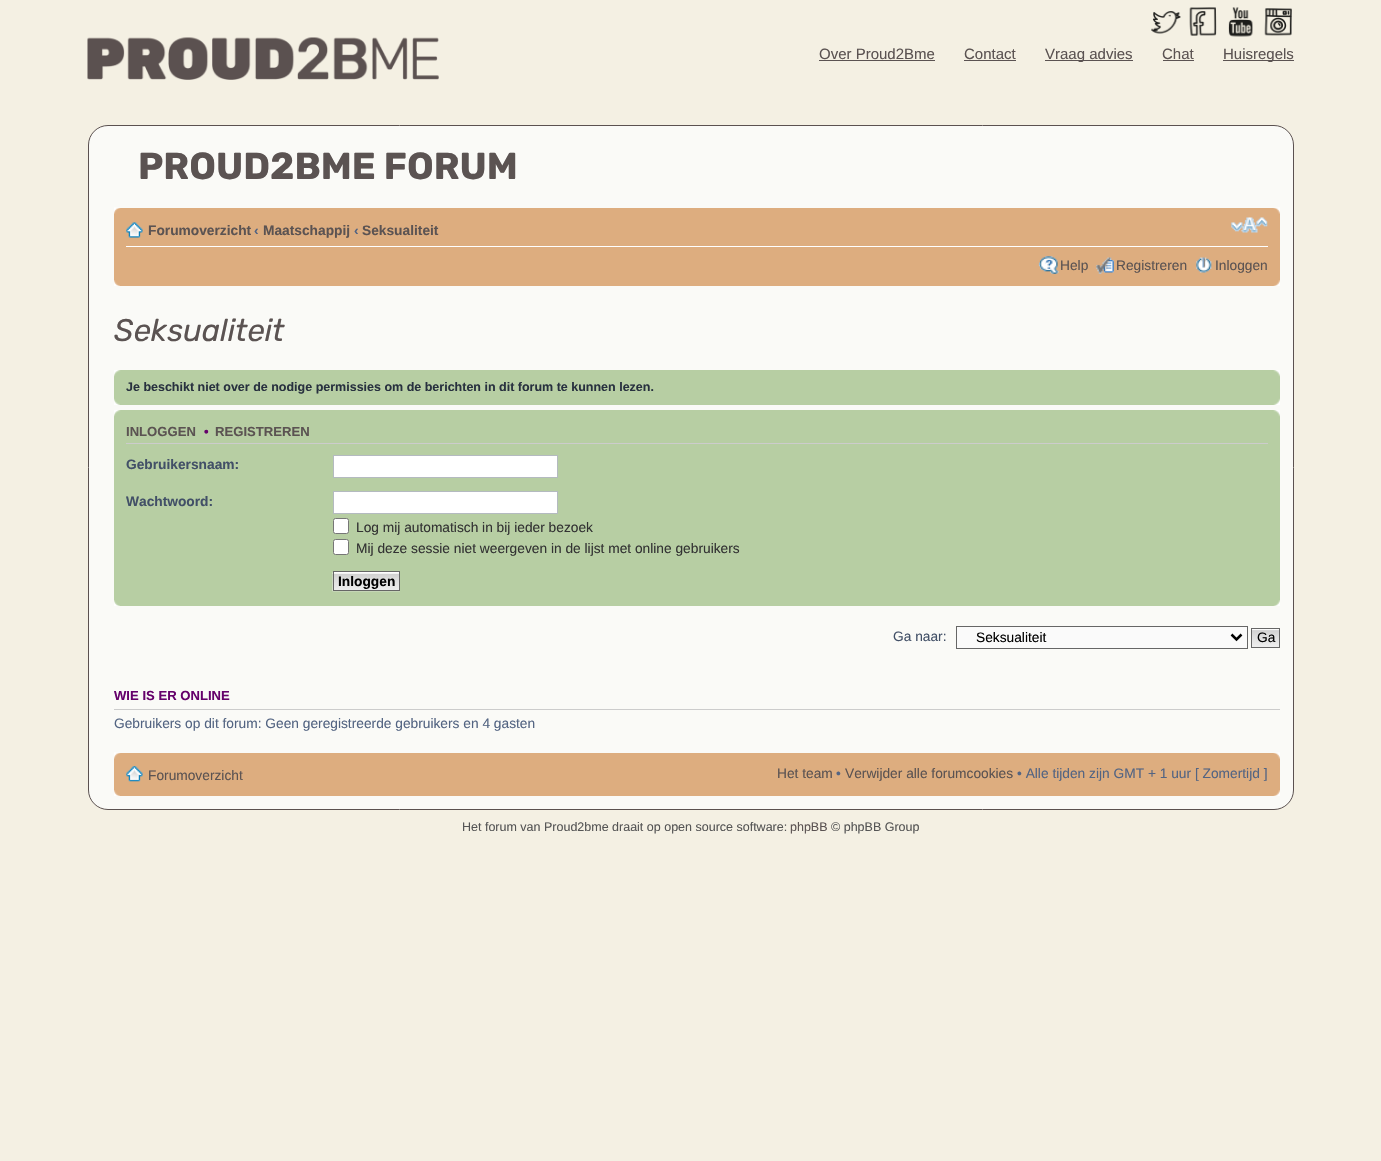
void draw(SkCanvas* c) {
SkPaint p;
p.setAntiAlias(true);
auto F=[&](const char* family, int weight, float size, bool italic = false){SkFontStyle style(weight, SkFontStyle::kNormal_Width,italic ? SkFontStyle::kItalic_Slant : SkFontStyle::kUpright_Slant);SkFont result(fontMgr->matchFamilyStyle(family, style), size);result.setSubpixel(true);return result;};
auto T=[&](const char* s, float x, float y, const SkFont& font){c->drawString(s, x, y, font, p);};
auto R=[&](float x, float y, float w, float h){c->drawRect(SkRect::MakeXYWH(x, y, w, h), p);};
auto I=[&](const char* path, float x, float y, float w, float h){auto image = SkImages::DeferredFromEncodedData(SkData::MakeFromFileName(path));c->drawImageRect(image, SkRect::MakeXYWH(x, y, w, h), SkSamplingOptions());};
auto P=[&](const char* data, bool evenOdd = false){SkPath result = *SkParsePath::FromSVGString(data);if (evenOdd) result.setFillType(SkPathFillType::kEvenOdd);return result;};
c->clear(0xfff4f0e3);
I("1.png",87,37,352,43);
I("2.png",1151,11,30,23);
I("3.png",1189,7,28,29);
I("4.png",1228,7,25,30);
I("5.png",1264,8,28,28);
auto f1 = F("Liberation Sans",400,15);
p.setColor(0xff5b5352);
T("Over Proud2Bme",819,59,f1);
R(819,60,116,1);
T("Contact",964,59,f1);
R(964,60,52,1);
R(1045,60,88,1);
T("Vraag advies",1045,59,f1);
T("Chat",1162,59,f1);
R(1163,60,31,1);
R(1223,60,71,1);
T("Huisregels",1223,59,f1);
p.setColor(0xfffafaf7);
c->drawRoundRect(SkRect::MakeXYWH(88.5,125.5,1205,684),19.5,19.5,p);
p.setStroke(true);
p.setStrokeWidth(1);
p.setColor(0xff5b5150);
c->drawRoundRect(SkRect::MakeXYWH(88.5,125.5,1205,684),19.5,19.5,p);
auto f2 = F("Rubik",700,37.5);
p.setStroke(false);
p.setColor(0xff5b5352);
T("PROUD2BME FORUM",138,179,f2);
p.setColor(0xffddad7f);
R(114,208,1166,78);
I("6.png",114,207,7,7);
I("7.png",1273,207,7,7);
p.setColor(0xffffffff);
R(126,246,1142,1);
I("8.png",126,222,17,16);
auto f3 = F("Liberation Sans",700,13.75);
p.setColor(0xff5b5352);
T("Forumoverzicht",148,235,f3);
p.setColor(0xff536482);
T("‹",254,235,f3);
p.setColor(0xff5b5352);
T("Maatschappij",263,235,f3);
p.setColor(0xff536482);
T("‹",354,235,f3);
p.setColor(0xff5b5352);
T("Seksualiteit",362,235,f3);
I("9.png",1231,217,37,16);
I("10.png",1038,256,21,18);
auto f4 = F("Liberation Sans",400,13.75);
T("Help",1060,270,f4);
I("11.png",1096,257,18,17);
T("Registreren",1116,270,f4);
I("12.png",1196,257,16,16);
T("Inloggen",1215,270,f4);
I("13.png",114,280,6,6);
I("14.png",1273,280,7,6);
auto f5 = F("Rubik",400,31.25,true);
T("Seksualiteit",114,341,f5);
p.setColor(0xffb7cea3);
R(114,370,1166,35);
I("15.png",114,370,7,7);
I("16.png",1273,370,7,7);
auto f6 = F("Liberation Sans",700,12.5);
p.setColor(0xff28313f);
T("Je beschikt niet over de nodige permissies om de berichten in dit forum te kunnen lezen.",126,391,f6);
I("17.png",114,398,6,7);
I("18.png",1273,398,7,7);
p.setColor(0xffb7cea3);
R(114,410,1166,196);
I("15.png",114,410,7,7);
I("16.png",1273,410,7,7);
p.setColor(0xffcccccc);
R(126,443,1142,1);
auto f7 = F("Liberation Sans",700,13.1);
p.setColor(0xff5b5352);
T("INLOGGEN",126,436,f7);
p.setColor(0xff65016b);
T("•",204,436,f7);
p.setColor(0xff5b5352);
T("REGISTREREN",215,436,f7);
p.setColor(0xff425067);
T("Gebruikersnaam:",126,469,f3);
p.setColor(0xffffffff);
c->drawRect(SkRect::MakeXYWH(333.5,455.5,224,22),p);
p.setStroke(true);
p.setColor(0xffb4bac0);
c->drawRect(SkRect::MakeXYWH(333.5,455.5,224,22),p);
p.setStroke(false);
p.setColor(0xff425067);
T("Wachtwoord:",126,506,f3);
p.setColor(0xffffffff);
c->drawRect(SkRect::MakeXYWH(333.5,491.5,224,22),p);
p.setStroke(true);
p.setColor(0xffb4bac0);
c->drawRect(SkRect::MakeXYWH(333.5,491.5,224,22),p);
p.setStroke(false);
p.setColor(0xffffffff);
c->drawRoundRect(SkRect::MakeXYWH(333.5,518.5,15,15),2,2,p);
p.setStroke(true);
p.setColor(0xff767676);
c->drawRoundRect(SkRect::MakeXYWH(333.5,518.5,15,15),2,2,p);
p.setStroke(false);
p.setColor(0xff333333);
T("Log mij automatisch in bij ieder bezoek",356,532,f4);
p.setColor(0xffffffff);
c->drawRoundRect(SkRect::MakeXYWH(333.5,539.5,15,15),2,2,p);
p.setStroke(true);
p.setColor(0xff767676);
c->drawRoundRect(SkRect::MakeXYWH(333.5,539.5,15,15),2,2,p);
p.setStroke(false);
p.setColor(0xff333333);
T("Mij deze sessie niet weergeven in de lijst met online gebruikers",356,553,f4);
p.setColor(0xfffafafa);
R(334,572,65,1);
I("19.png",332,572,68,20);
p.setStroke(true);
p.setColor(0xff666666);
c->drawRect(SkRect::MakeXYWH(333.5,571.5,66,19),p);
p.setStroke(false);
p.setColor(0xff000000);
T("Inloggen",338,586,f3);
I("20.png",114,600,6,6);
I("21.png",1273,600,7,6);
p.setColor(0xff425067);
T("Ga naar:",893,641,f4);
p.setColor(0xfffafafa);
c->drawRect(SkRect::MakeXYWH(956.5,626.5,291,22),p);
p.setStroke(true);
p.setColor(0xff666666);
c->drawRect(SkRect::MakeXYWH(956.5,626.5,291,22),p);
p.setStrokeWidth(2.5);
p.setColor(0xff000000);
c->drawPath(P("M1231.5 634.5l5 5l5-5"),p);
p.setStroke(false);
T("Seksualiteit",976,642,f4);
p.setColor(0xfffafafa);
R(1252,629,27,1);
I("22.png",1252,630,27,17);
p.setStroke(true);
p.setStrokeWidth(1);
p.setColor(0xff666666);
c->drawRect(SkRect::MakeXYWH(1251.5,628.5,28,19),p);
p.setStroke(false);
p.setColor(0xff000000);
T("Ga",1257,642,f4);
p.setColor(0xffcccccc);
R(114,709,1166,1);
p.setColor(0xff65016b);
T("WIE IS ER ONLINE",114,700,f7);
p.setColor(0xff536482);
T("Gebruikers op dit forum: Geen geregistreerde gebruikers en 4 gasten",114,728,f4);
p.setColor(0xffddad7f);
R(114,753,1166,43);
I("6.png",114,752,7,7);
I("7.png",1273,752,7,7);
I("23.png",126,766,17,16);
p.setColor(0xff5b5352);
T("Forumoverzicht",148,780,f4);
T("Het team",777,778,f4);
p.setColor(0xff536482);
T("•",836,778,f4);
p.setColor(0xff5b5352);
T("Verwijder alle forumcookies",845,778,f4);
p.setColor(0xff536482);
T("• Alle tijden zijn GMT + 1 uur [ Zomertijd ]",1017,778,f4);
I("13.png",114,790,6,6);
I("14.png",1273,790,7,6);
auto f8 = F("Liberation Sans",400,12.5);
p.setColor(0xff555555);
T("Het forum van Proud2bme draait op open source software:",462,831,f8);
p.setColor(0xff5b5352);
T("phpBB",790,831,f8);
p.setColor(0xff555555);
T("© phpBB Group",831,831,f8);
}
